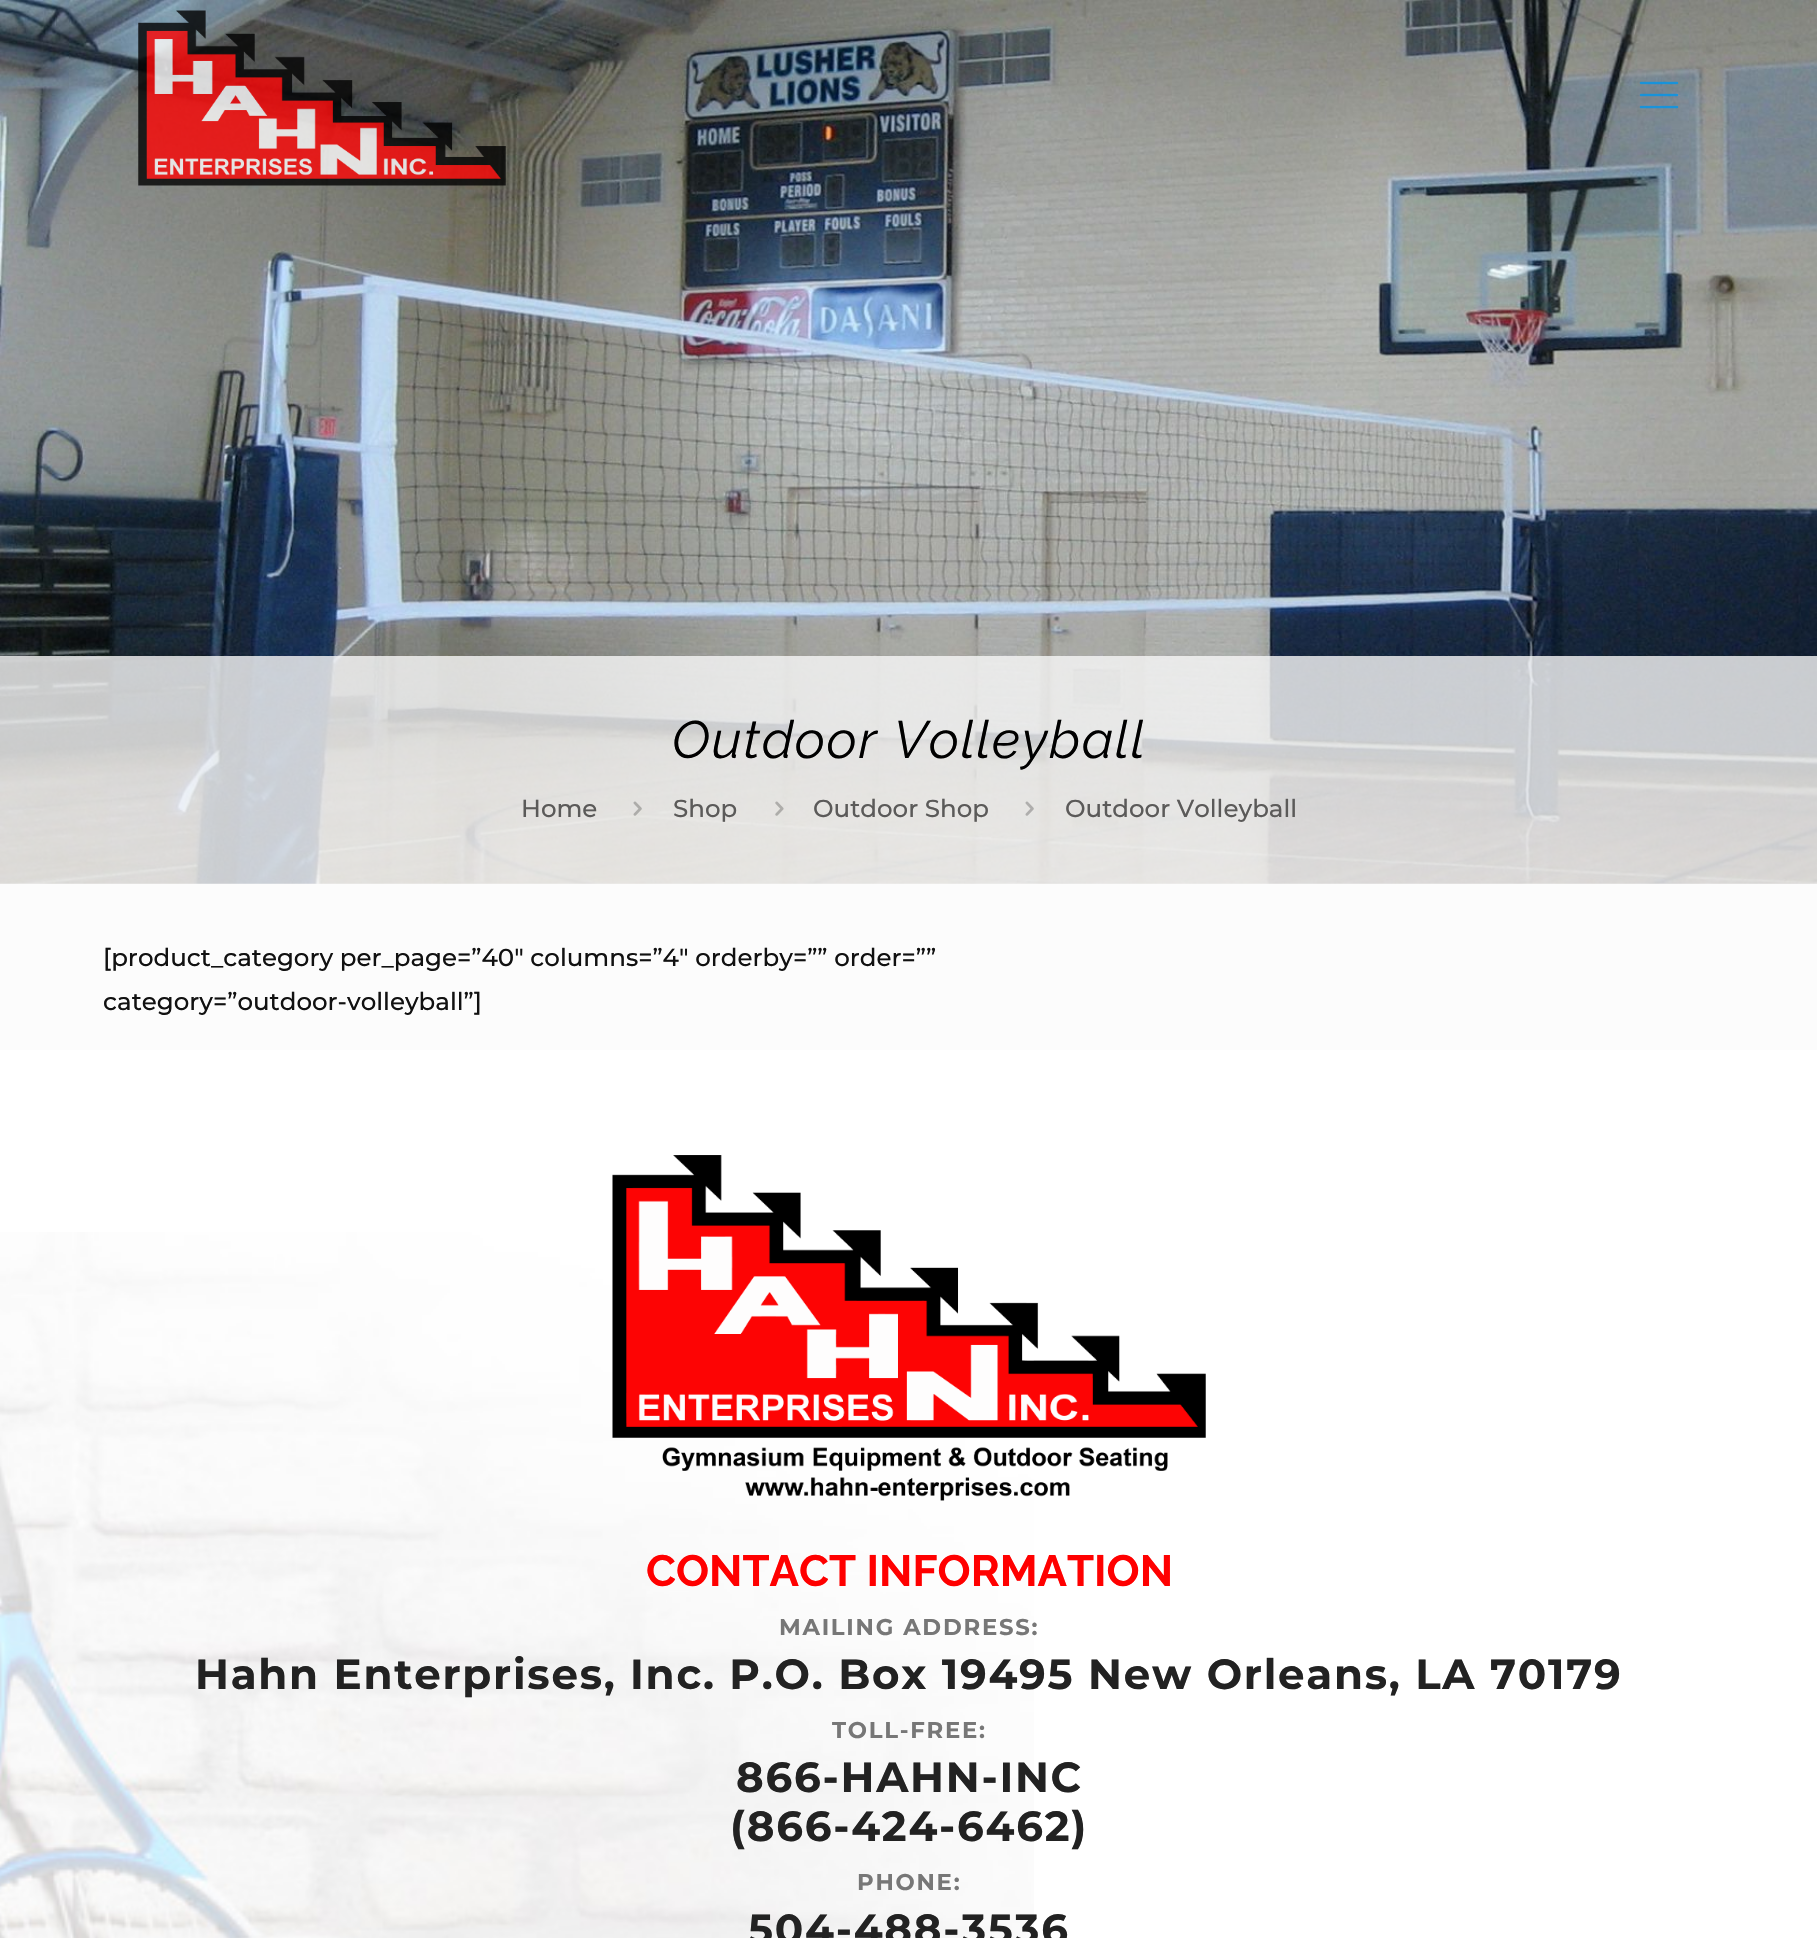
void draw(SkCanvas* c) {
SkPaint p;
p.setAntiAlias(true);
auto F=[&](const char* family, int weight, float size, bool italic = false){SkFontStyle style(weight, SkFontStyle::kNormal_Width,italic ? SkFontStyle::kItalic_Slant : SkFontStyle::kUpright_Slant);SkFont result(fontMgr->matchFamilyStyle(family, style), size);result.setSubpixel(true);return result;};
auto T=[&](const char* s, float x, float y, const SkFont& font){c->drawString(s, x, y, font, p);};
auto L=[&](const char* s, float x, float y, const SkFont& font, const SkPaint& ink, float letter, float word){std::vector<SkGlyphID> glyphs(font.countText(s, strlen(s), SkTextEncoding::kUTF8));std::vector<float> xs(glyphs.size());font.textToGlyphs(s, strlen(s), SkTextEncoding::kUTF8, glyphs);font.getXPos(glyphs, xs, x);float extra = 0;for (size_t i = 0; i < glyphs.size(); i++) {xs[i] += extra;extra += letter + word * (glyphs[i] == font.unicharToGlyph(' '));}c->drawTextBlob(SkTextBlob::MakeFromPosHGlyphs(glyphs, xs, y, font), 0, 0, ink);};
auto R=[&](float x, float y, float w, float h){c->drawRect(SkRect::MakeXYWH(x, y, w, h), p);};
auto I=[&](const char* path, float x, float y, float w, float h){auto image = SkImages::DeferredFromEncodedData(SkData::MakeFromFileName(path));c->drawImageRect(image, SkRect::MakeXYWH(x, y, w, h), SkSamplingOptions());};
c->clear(0xfffcfcfc);
I("1.png",0,0,1817,884);
I("2.png",138,10,368,176);
I("3.png",1639,81,40,28);
p.setColor(0xccf7f7f7);
R(0,656,1817,228);
auto f1 = F("Raleway",400,52.5,true);
p.setColor(0xff000000);
L("Outdoor Volleyball",672,758,f1,p,1.75,0);
auto f2 = F("Montserrat",500,24.5);
p.setColor(0xff5b5a59);
T("Home",521,817,f2);
I("4.png",633,801,9,15);
T("Shop",673,817,f2);
I("5.png",775,801,9,15);
T("Outdoor Shop",813,817,f2);
I("6.png",1025,801,9,15);
T("Outdoor Volleyball",1065,817,f2);
p.setColor(0xff111111);
T("[product_category per_page=”40″ columns=”4″ orderby=”” order=””",103,966,f2);
T("category=”outdoor-volleyball”]",103,1010,f2);
p.setColor(0xffffffff);
R(0,1050,1817,888);
I("7.png",0,1232,1034,706);
I("8.png",612,1155,594,346);
auto f3 = F("Raleway",700,43.75);
p.setColor(0xffff0000);
T("CONTACT INFORMATION",646,1586,f3);
auto f4 = F("Montserrat",700,22.75);
p.setColor(0xff777777);
L("MAILING ADDRESS:",779,1635,f4,p,1.75,0);
auto f5 = F("Montserrat",700,42);
p.setColor(0xff222222);
L("Hahn Enterprises, Inc. P.O. Box 19495 New Orleans, LA 70179",195,1689,f5,p,1.75,0);
p.setColor(0xff777777);
L("TOLL-FREE:",832,1738,f4,p,1.75,0);
p.setColor(0xff222222);
L("866-HAHN-INC",736,1792,f5,p,1.75,0);
L("(866-424-6462)",730,1841,f5,p,1.75,0);
p.setColor(0xff777777);
L("PHONE:",857,1890,f4,p,1.75,0);
p.setColor(0xff222222);
L("504-488-3536",748,1944,f5,p,1.75,0);
}
